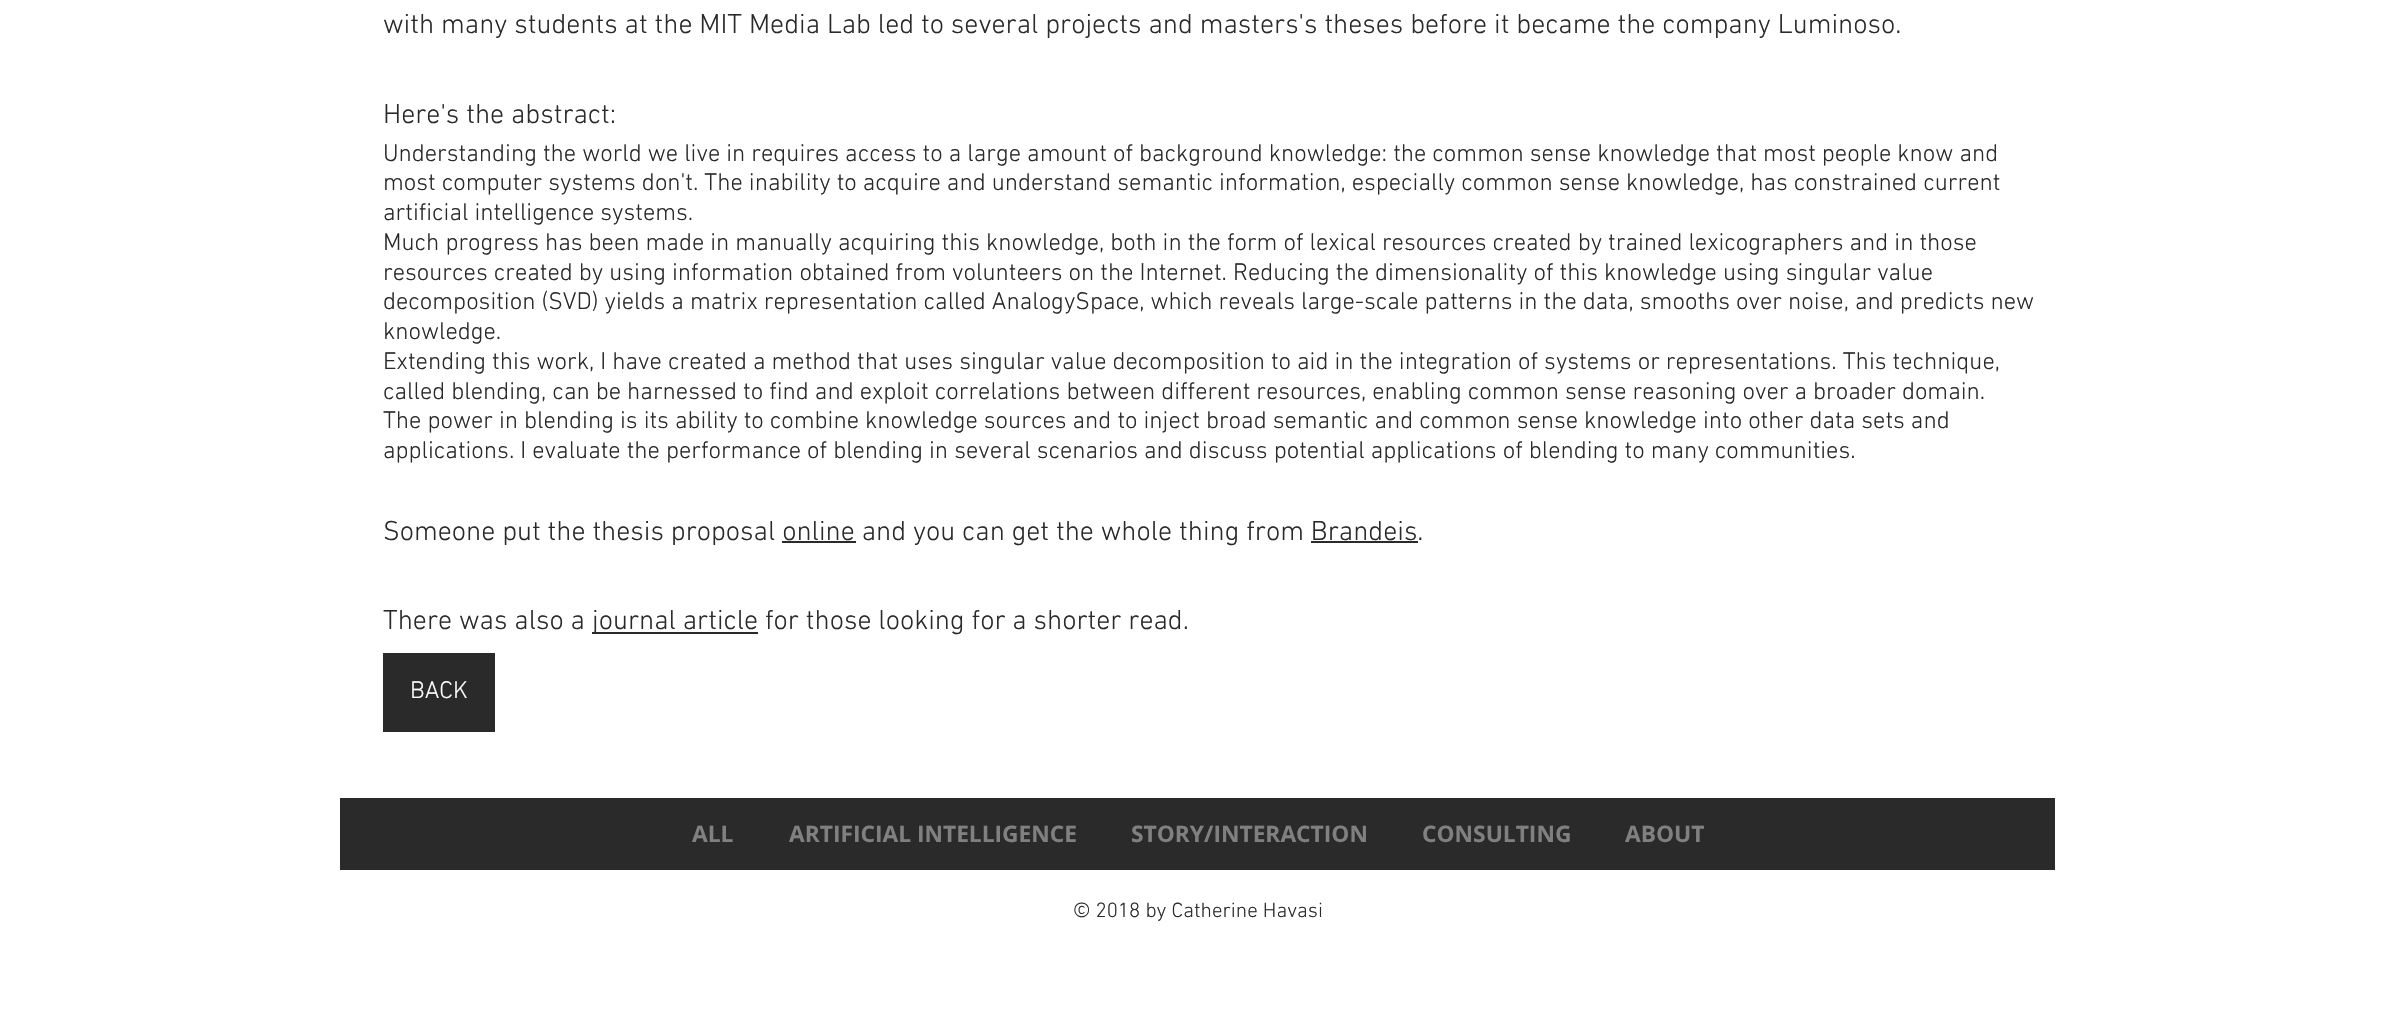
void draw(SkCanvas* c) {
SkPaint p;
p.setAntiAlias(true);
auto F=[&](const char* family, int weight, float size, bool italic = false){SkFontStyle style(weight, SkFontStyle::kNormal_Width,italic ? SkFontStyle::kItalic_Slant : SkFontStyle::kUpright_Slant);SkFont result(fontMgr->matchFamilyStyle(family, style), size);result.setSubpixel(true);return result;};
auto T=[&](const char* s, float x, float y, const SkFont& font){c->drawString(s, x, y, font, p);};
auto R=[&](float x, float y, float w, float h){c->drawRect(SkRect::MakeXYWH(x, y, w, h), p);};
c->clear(0xffffffff);
auto f1 = F("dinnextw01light",300,28);
p.setColor(0xff2a2a2a);
T("with many students at the MIT Media Lab led to several projects and masters's theses before it became the company Luminoso.",383,33,f1);
T("Here's the abstract:",383,123,f1);
auto f2 = F("dinnextw01light",300,24.5);
T("Understanding the world we live in requires access to a large amount of background knowledge: the common sense knowledge that most people know and",383,161,f2);
T("most computer systems don't. The inability to acquire and understand semantic information, especially common sense knowledge, has constrained current",383,190,f2);
T("artificial intelligence systems.",383,220,f2);
T("Much progress has been made in manually acquiring this knowledge, both in the form of lexical resources created by trained lexicographers and in those",383,250,f2);
T("resources created by using information obtained from volunteers on the Internet. Reducing the dimensionality of this knowledge using singular value",383,280,f2);
T("decomposition (SVD) yields a matrix representation called AnalogySpace, which reveals large-scale patterns in the data, smooths over noise, and predicts new",383,309,f2);
T("knowledge.",383,339,f2);
T("Extending this work, I have created a method that uses singular value decomposition to aid in the integration of systems or representations. This technique,",383,369,f2);
T("called blending, can be harnessed to find and exploit correlations between different resources, enabling common sense reasoning over a broader domain.",383,399,f2);
T("The power in blending is its ability to combine knowledge sources and to inject broad semantic and common sense knowledge into other data sets and",383,428,f2);
T("applications. I evaluate the performance of blending in several scenarios and discuss potential applications of blending to many communities.",383,458,f2);
T("Someone put the thesis proposal online and you can get the whole thing from Brandeis.",383,540,f1);
R(782,541,74,2);
R(1311,541,107,2);
T("There was also a",383,629,f1);
R(592,632,166,2);
T("journal article for those looking for a shorter read.",592,629,f1);
R(383,653,112,79);
p.setColor(0xffffffff);
T("BACK",410,698,f2);
p.setColor(0xff2a2a2a);
R(340,798,1715,72);
auto f3 = F("Open Sans",700,22.75);
p.setColor(0xff808080);
T("ALL",692,842,f3);
T("ARTIFICIAL INTELLIGENCE",789,842,f3);
T("STORY/INTERACTION",1131,842,f3);
T("CONSULTING",1422,842,f3);
T("ABOUT",1625,842,f3);
auto f4 = F("dinnextw01light",300,21);
p.setColor(0xff2a2a2a);
T("© 2018 by Catherine Havasi",1073,917,f4);
}
